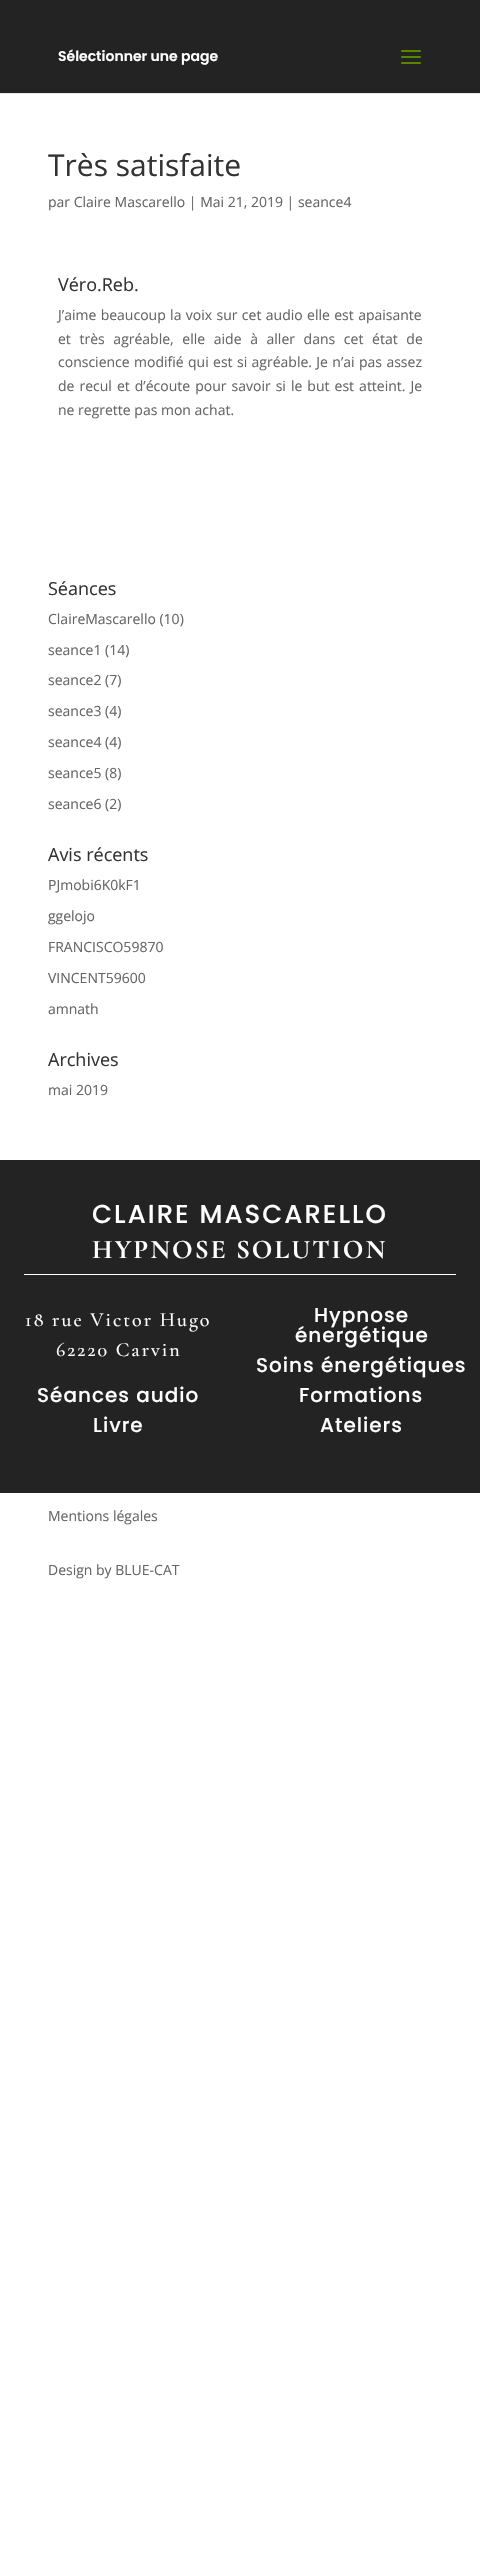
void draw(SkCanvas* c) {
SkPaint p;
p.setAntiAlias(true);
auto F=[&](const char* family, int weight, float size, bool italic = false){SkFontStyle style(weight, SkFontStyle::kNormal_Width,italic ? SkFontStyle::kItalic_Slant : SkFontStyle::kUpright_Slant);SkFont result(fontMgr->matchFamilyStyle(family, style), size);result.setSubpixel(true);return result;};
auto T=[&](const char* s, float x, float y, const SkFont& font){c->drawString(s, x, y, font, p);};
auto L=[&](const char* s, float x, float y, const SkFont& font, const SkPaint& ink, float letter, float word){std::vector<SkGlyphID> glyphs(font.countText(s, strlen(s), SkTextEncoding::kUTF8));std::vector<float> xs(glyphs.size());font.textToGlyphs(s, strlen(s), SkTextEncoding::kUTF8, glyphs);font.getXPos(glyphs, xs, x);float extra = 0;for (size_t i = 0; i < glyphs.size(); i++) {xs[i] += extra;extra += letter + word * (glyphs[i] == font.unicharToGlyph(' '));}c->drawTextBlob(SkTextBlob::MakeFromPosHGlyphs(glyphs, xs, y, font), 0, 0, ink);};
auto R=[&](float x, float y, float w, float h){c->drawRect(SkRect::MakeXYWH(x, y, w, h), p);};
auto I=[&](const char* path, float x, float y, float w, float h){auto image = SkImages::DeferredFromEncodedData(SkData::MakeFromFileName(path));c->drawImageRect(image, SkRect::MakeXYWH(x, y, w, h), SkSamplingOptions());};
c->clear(0xffffffff);
p.setColor(0xffe6e6e6);
R(0,93,480,1);
p.setColor(0xff232323);
R(0,0,480,93);
auto f1 = F("Poppins",600,14);
p.setColor(0xffffffff);
T("Sélectionner une page",58,61,f1);
I("1.png",401,50,20,14);
auto f2 = F("Open Sans",400,30);
p.setColor(0xff333333);
T("Très satisfaite",48,176,f2);
auto f3 = F("Open Sans",400,14);
p.setColor(0xff666666);
T("par Claire Mascarello | Mai 21, 2019 | seance4",48,207,f3);
auto f4 = F("Open Sans",400,18);
p.setColor(0xff333333);
T("Véro.Reb.",58,291,f4);
p.setColor(0xff666666);
L("J’aime beaucoup la voix sur cet audio elle est apaisante",58,320,f3,p,0,.75);
L("et très agréable, elle aide à aller dans cet état de",58,344,f3,p,0,5);
L("conscience modifié qui est si agréable. Je n’ai pas assez",58,367,f3,p,0,.75);
L("de recul et d’écoute pour savoir si le but est atteint. Je",58,391,f3,p,0,1.4);
T("ne regrette pas mon achat.",58,415,f3);
p.setColor(0xff333333);
T("Séances",48,595,f4);
p.setColor(0xff666666);
T("ClaireMascarello (10)",48,624,f3);
T("seance1 (14)",48,655,f3);
T("seance2 (7)",48,685,f3);
T("seance3 (4)",48,716,f3);
T("seance4 (4)",48,747,f3);
T("seance5 (8)",48,778,f3);
T("seance6 (2)",48,809,f3);
p.setColor(0xff333333);
T("Avis récents",48,861,f4);
p.setColor(0xff666666);
T("PJmobi6K0kF1",48,890,f3);
T("ggelojo",48,921,f3);
T("FRANCISCO59870",48,952,f3);
T("VINCENT59600",48,983,f3);
T("amnath",48,1014,f3);
p.setColor(0xff333333);
T("Archives",48,1066,f4);
p.setColor(0xff666666);
T("mai 2019",48,1095,f3);
p.setColor(0xff232323);
R(0,1160,480,333);
p.setColor(0xffffffff);
R(24,1274,432,1);
auto f5 = F("Poppins",500,26);
L("CLAIRE MASCARELLO",92,1223,f5,p,2,0);
auto f6 = F("Cormorant Garamond",700,27);
L("HYPNOSE SOLUTION",92,1258,f6,p,2,0);
auto f7 = F("Cormorant Garamond",500,20);
L("18 rue Victor Hugo",25,1326,f7,p,2,0);
L("62220 Carvin",56,1356,f7,p,2,0);
auto f8 = F("Poppins",500,20);
L("Hypnose",314,1322,f8,p,1,0);
L("énergétique",295,1342,f8,p,1,0);
L("Soins énergétiques",256,1372,f8,p,1,0);
L("Séances audio",37,1402,f8,p,1,0);
L("Livre",93,1432,f8,p,1,0);
L("Formations",299,1402,f8,p,1,0);
L("Ateliers",320,1432,f8,p,1,0);
p.setColor(0xff666666);
T("Mentions légales",48,1521,f3);
T("Design by BLUE-CAT",48,1575,f3);
}
